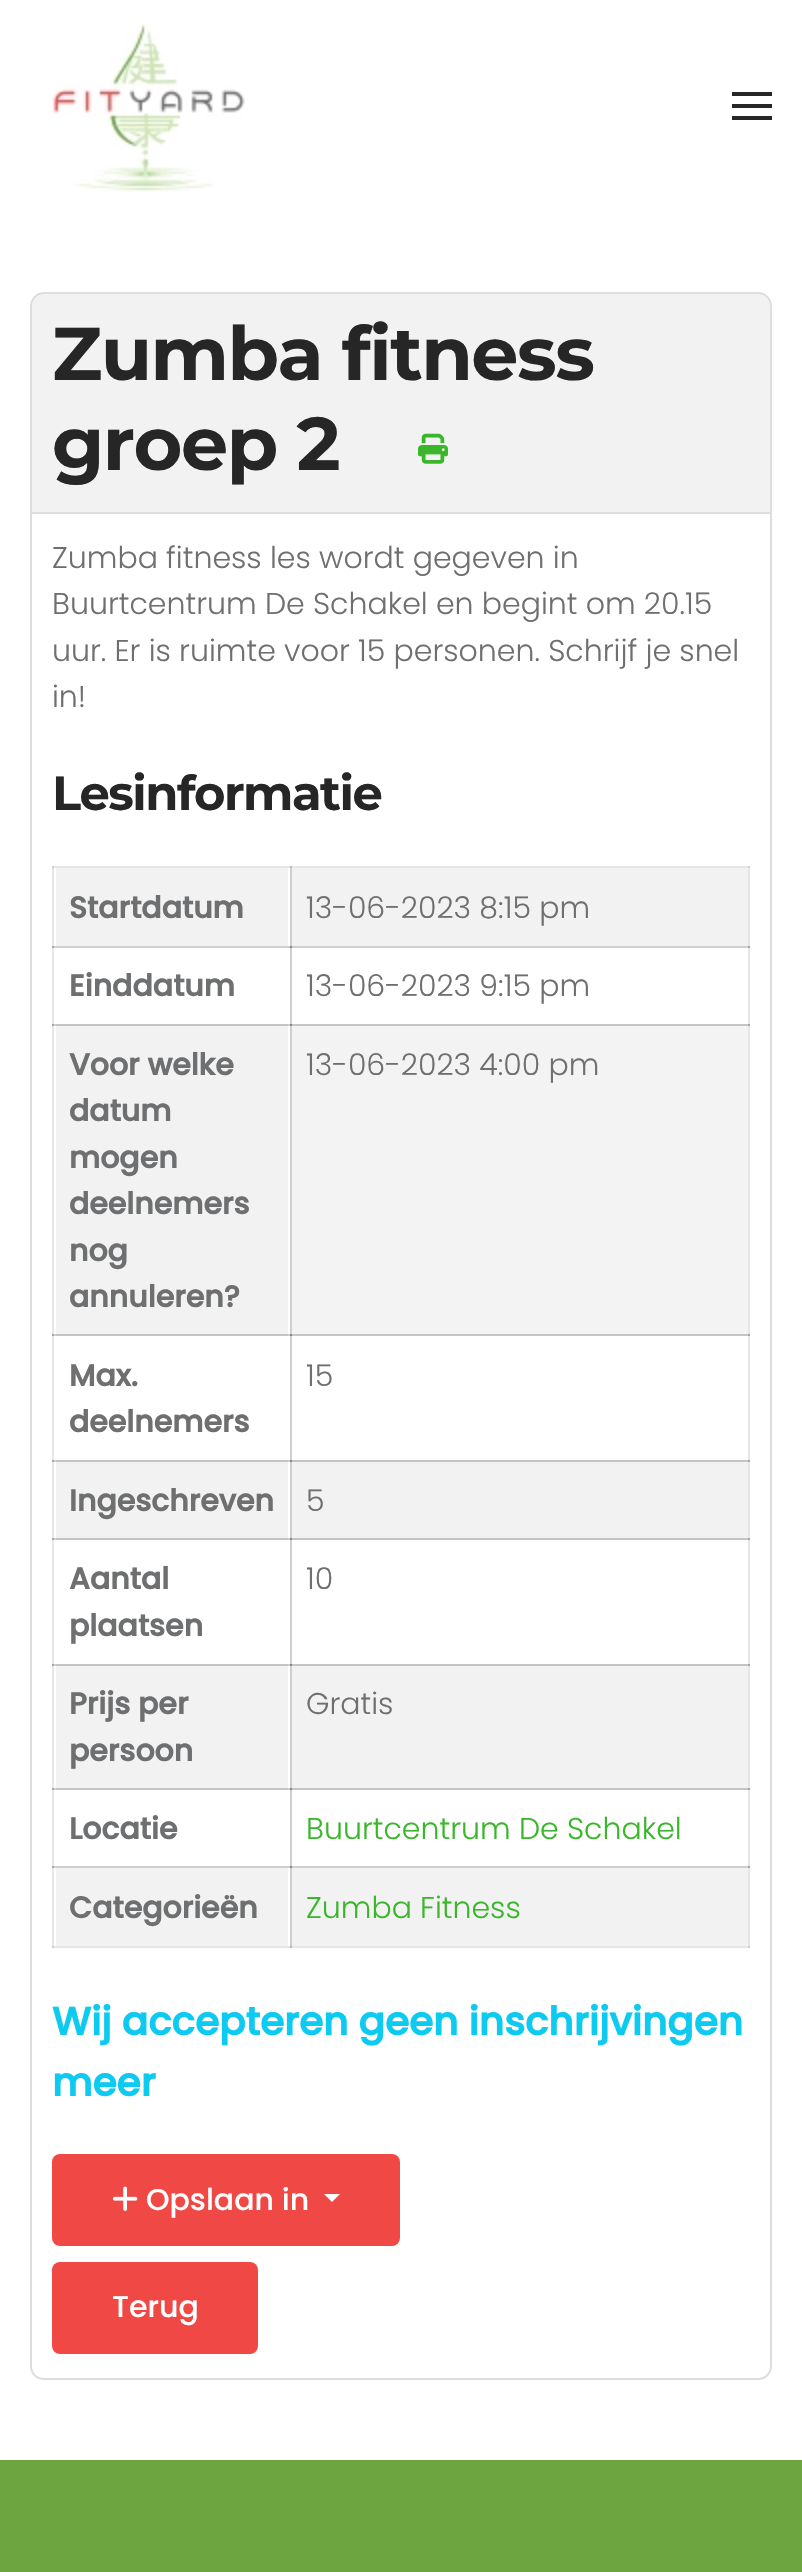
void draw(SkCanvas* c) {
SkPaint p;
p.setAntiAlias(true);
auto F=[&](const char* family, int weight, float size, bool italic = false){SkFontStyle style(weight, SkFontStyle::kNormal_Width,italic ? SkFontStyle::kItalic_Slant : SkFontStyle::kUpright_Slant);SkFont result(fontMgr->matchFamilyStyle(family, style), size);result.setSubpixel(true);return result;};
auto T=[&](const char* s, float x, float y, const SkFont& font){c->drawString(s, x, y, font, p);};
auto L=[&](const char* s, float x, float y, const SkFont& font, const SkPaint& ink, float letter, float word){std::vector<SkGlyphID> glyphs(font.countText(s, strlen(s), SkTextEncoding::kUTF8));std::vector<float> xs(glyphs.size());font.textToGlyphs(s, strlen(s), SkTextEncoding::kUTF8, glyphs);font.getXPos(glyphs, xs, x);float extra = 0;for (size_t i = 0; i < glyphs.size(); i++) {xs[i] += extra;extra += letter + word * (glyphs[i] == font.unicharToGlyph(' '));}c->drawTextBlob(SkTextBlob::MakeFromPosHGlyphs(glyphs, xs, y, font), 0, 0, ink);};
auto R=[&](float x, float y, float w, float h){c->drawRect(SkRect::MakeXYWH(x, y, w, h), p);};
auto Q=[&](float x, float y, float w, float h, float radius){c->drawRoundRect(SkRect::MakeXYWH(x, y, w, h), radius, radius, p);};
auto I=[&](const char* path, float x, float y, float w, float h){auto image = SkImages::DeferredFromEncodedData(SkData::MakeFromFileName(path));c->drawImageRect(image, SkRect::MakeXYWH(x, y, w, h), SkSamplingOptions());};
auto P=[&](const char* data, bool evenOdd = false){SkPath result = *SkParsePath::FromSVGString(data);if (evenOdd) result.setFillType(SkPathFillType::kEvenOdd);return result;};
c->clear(0xffffffff);
p.setColor(0xffe6e6e6);
R(52,866,2,1082);
p.setColor(0xffcfcfcf);
R(290,866,2,1082);
p.setColor(0xffe6e6e6);
R(748,866,2,1082);
p.setColor(0xffcfcfcf);
R(52,1024,238,2);
p.setColor(0xffa7a7a7);
R(52,1024,2,2);
p.setColor(0xff878787);
R(290,1024,2,2);
p.setColor(0xffa7a7a7);
R(748,1024,2,2);
p.setColor(0xffcfcfcf);
R(52,1334,238,2);
p.setColor(0xffa7a7a7);
R(52,1334,2,2);
p.setColor(0xff878787);
R(290,1334,2,2);
p.setColor(0xffa7a7a7);
R(748,1334,2,2);
p.setColor(0xffcfcfcf);
R(52,1460,238,2);
p.setColor(0xffa7a7a7);
R(52,1460,2,2);
p.setColor(0xff878787);
R(290,1460,2,2);
p.setColor(0xffa7a7a7);
R(748,1460,2,2);
p.setColor(0xffcfcfcf);
R(52,1538,238,2);
p.setColor(0xffa7a7a7);
R(52,1538,2,2);
p.setColor(0xff878787);
R(290,1538,2,2);
p.setColor(0xffa7a7a7);
R(748,1538,2,2);
p.setColor(0xffcfcfcf);
R(52,1664,238,2);
p.setColor(0xffa7a7a7);
R(52,1664,2,2);
p.setColor(0xff878787);
R(290,1664,2,2);
p.setColor(0xffa7a7a7);
R(748,1664,2,2);
p.setColor(0xffcfcfcf);
R(52,1788,238,2);
p.setColor(0xffa7a7a7);
R(52,1788,2,2);
p.setColor(0xff878787);
R(290,1788,2,2);
p.setColor(0xffa7a7a7);
R(748,1788,2,2);
I("1.png",52,23,193,169);
p.setColor(0xff262626);
R(732,92,40,4);
R(732,104,40,4);
R(732,116,40,4);
p.setColor(0xfff2f2f2);
c->drawPath(P("M44 293h714c7 0 13 6 13 13v207h-740v-207c0-7 6-13 13-13z"),p);
p.setStroke(true);
p.setStrokeWidth(2);
p.setColor(0xffdbdee1);
c->drawPath(P("M44 293h714c7 0 13 6 13 13v207h-740v-207c0-7 6-13 13-13z"),p);
auto f1 = F("Montserrat",100,74.75);
p.setStroke(false);
p.setColor(0xff262626);
L("Zumba fitness",52,380,f1,p,-1.5,0);
L("groep 2",52,470,f1,p,-1.5,0);
I("2.png",418,433,30,31);
p.setColor(0xffdbdee1);
c->drawPath(P("M30 514h742v1852c0 8-6 14-14 14h-714c-8 0-14-6-14-14zm2 0h738v1852c0 7-5 12-12 12h-714c-7 0-12-5-12-12z",true),p);
auto f2 = F("Poppins",300,30);
p.setColor(0xff6e6f70);
T("Zumba fitness les wordt gegeven in",52,568,f2);
T("Buurtcentrum De Schakel en begint om 20.15",52,614,f2);
T("uur. Er is ruimte voor 15 personen. Schrijf je snel",52,661,f2);
T("in!",52,707,f2);
auto f3 = F("Montserrat",100,48);
p.setColor(0xff262626);
L("Lesinformatie",52,810,f3,p,-1.5,0);
p.setColor(0xffe6e6e6);
R(52,866,698,2);
p.setColor(0xffcfcfcf);
R(52,866,2,2);
p.setColor(0xffbababa);
R(290,866,2,2);
p.setColor(0xffcfcfcf);
R(748,866,2,2);
R(52,946,698,2);
p.setColor(0xffa7a7a7);
R(52,946,2,2);
p.setColor(0xff878787);
R(290,946,2,2);
p.setColor(0xffa7a7a7);
R(748,946,2,2);
p.setColor(0xfff2f2f2);
R(56,868,232,78);
auto f4 = F("Poppins",700,30);
p.setColor(0xff6e6f70);
T("Startdatum",69,918,f4);
p.setColor(0xfff2f2f2);
R(292,868,456,78);
p.setColor(0xff6e6f70);
T("13-06-2023 8:15 pm",306,918,f2);
T("Einddatum",69,996,f4);
T("13-06-2023 9:15 pm",306,996,f2);
p.setColor(0xfff2f2f2);
R(56,1026,232,308);
p.setColor(0xffc4c4c4);
R(56,1024,232,2);
R(56,1334,232,2);
p.setColor(0xff6e6f70);
T("Voor welke",69,1075,f4);
T("datum",69,1121,f4);
T("mogen",69,1168,f4);
T("deelnemers",69,1214,f4);
T("nog",69,1261,f4);
T("annuleren?",69,1307,f4);
p.setColor(0xfff3f3f3);
R(292,1026,456,308);
p.setColor(0xffc5c5c5);
R(292,1024,456,2);
R(292,1334,456,2);
p.setColor(0xff6e6f70);
T("13-06-2023 4:00 pm",306,1075,f2);
T("Max.",69,1386,f4);
T("deelnemers",69,1432,f4);
T("15",306,1386,f2);
p.setColor(0xfff2f2f2);
R(56,1462,232,76);
p.setColor(0xffc4c4c4);
R(56,1460,232,2);
R(56,1538,232,2);
p.setColor(0xff6e6f70);
T("Ingeschreven",69,1511,f4);
p.setColor(0xfff2f2f2);
R(292,1462,456,76);
p.setColor(0xffc4c4c4);
R(292,1460,456,2);
R(292,1538,456,2);
p.setColor(0xff6e6f70);
T("5",306,1511,f2);
T("Aantal",69,1589,f4);
T("plaatsen",69,1636,f4);
T("10",306,1589,f2);
p.setColor(0xfff2f2f2);
R(56,1666,232,122);
p.setColor(0xffc4c4c4);
R(56,1664,232,2);
R(56,1788,232,2);
p.setColor(0xff6e6f70);
T("Prijs per",69,1714,f4);
T("persoon",69,1761,f4);
p.setColor(0xfff2f2f2);
R(292,1666,456,122);
p.setColor(0xffc4c4c4);
R(292,1664,456,2);
R(292,1788,456,2);
p.setColor(0xff6e6f70);
T("Gratis",306,1714,f2);
p.setColor(0xffcfcfcf);
R(52,1866,698,2);
p.setColor(0xffa7a7a7);
R(52,1866,2,2);
p.setColor(0xff878787);
R(290,1866,2,2);
p.setColor(0xffa7a7a7);
R(748,1866,2,2);
p.setColor(0xff6e6f70);
T("Locatie",69,1839,f4);
p.setColor(0xff3ab62a);
T("Buurtcentrum De Schakel",306,1839,f2);
p.setColor(0xffe6e6e6);
R(52,1946,698,2);
p.setColor(0xffcfcfcf);
R(52,1946,2,2);
p.setColor(0xffbababa);
R(290,1946,2,2);
p.setColor(0xffcfcfcf);
R(748,1946,2,2);
p.setColor(0xfff2f2f2);
R(56,1868,232,78);
p.setColor(0xff6e6f70);
T("Categorieën",69,1918,f4);
p.setColor(0xfff2f2f2);
R(292,1868,456,78);
p.setColor(0xff3ab62a);
T("Zumba Fitness",306,1918,f2);
auto f5 = F("Poppins",700,39);
p.setColor(0xff0dcaf0);
T("Wij accepteren geen inschrijvingen",52,2035,f5);
T("meer",52,2096,f5);
p.setColor(0xfff04845);
Q(52,2154,348,92,8);
I("3.png",113,2186,25,25);
auto f6 = F("Poppins",500,30);
p.setColor(0xffffffff);
T("Opslaan in",146,2210,f6);
c->drawPath(P("M324 2194h16l-8 8z"),p);
p.setColor(0xfff04845);
Q(52,2262,206,92,8);
p.setColor(0xffffffff);
T("Terug",112,2317,f6);
p.setColor(0xff6da541);
R(0,2460,802,112);
}
